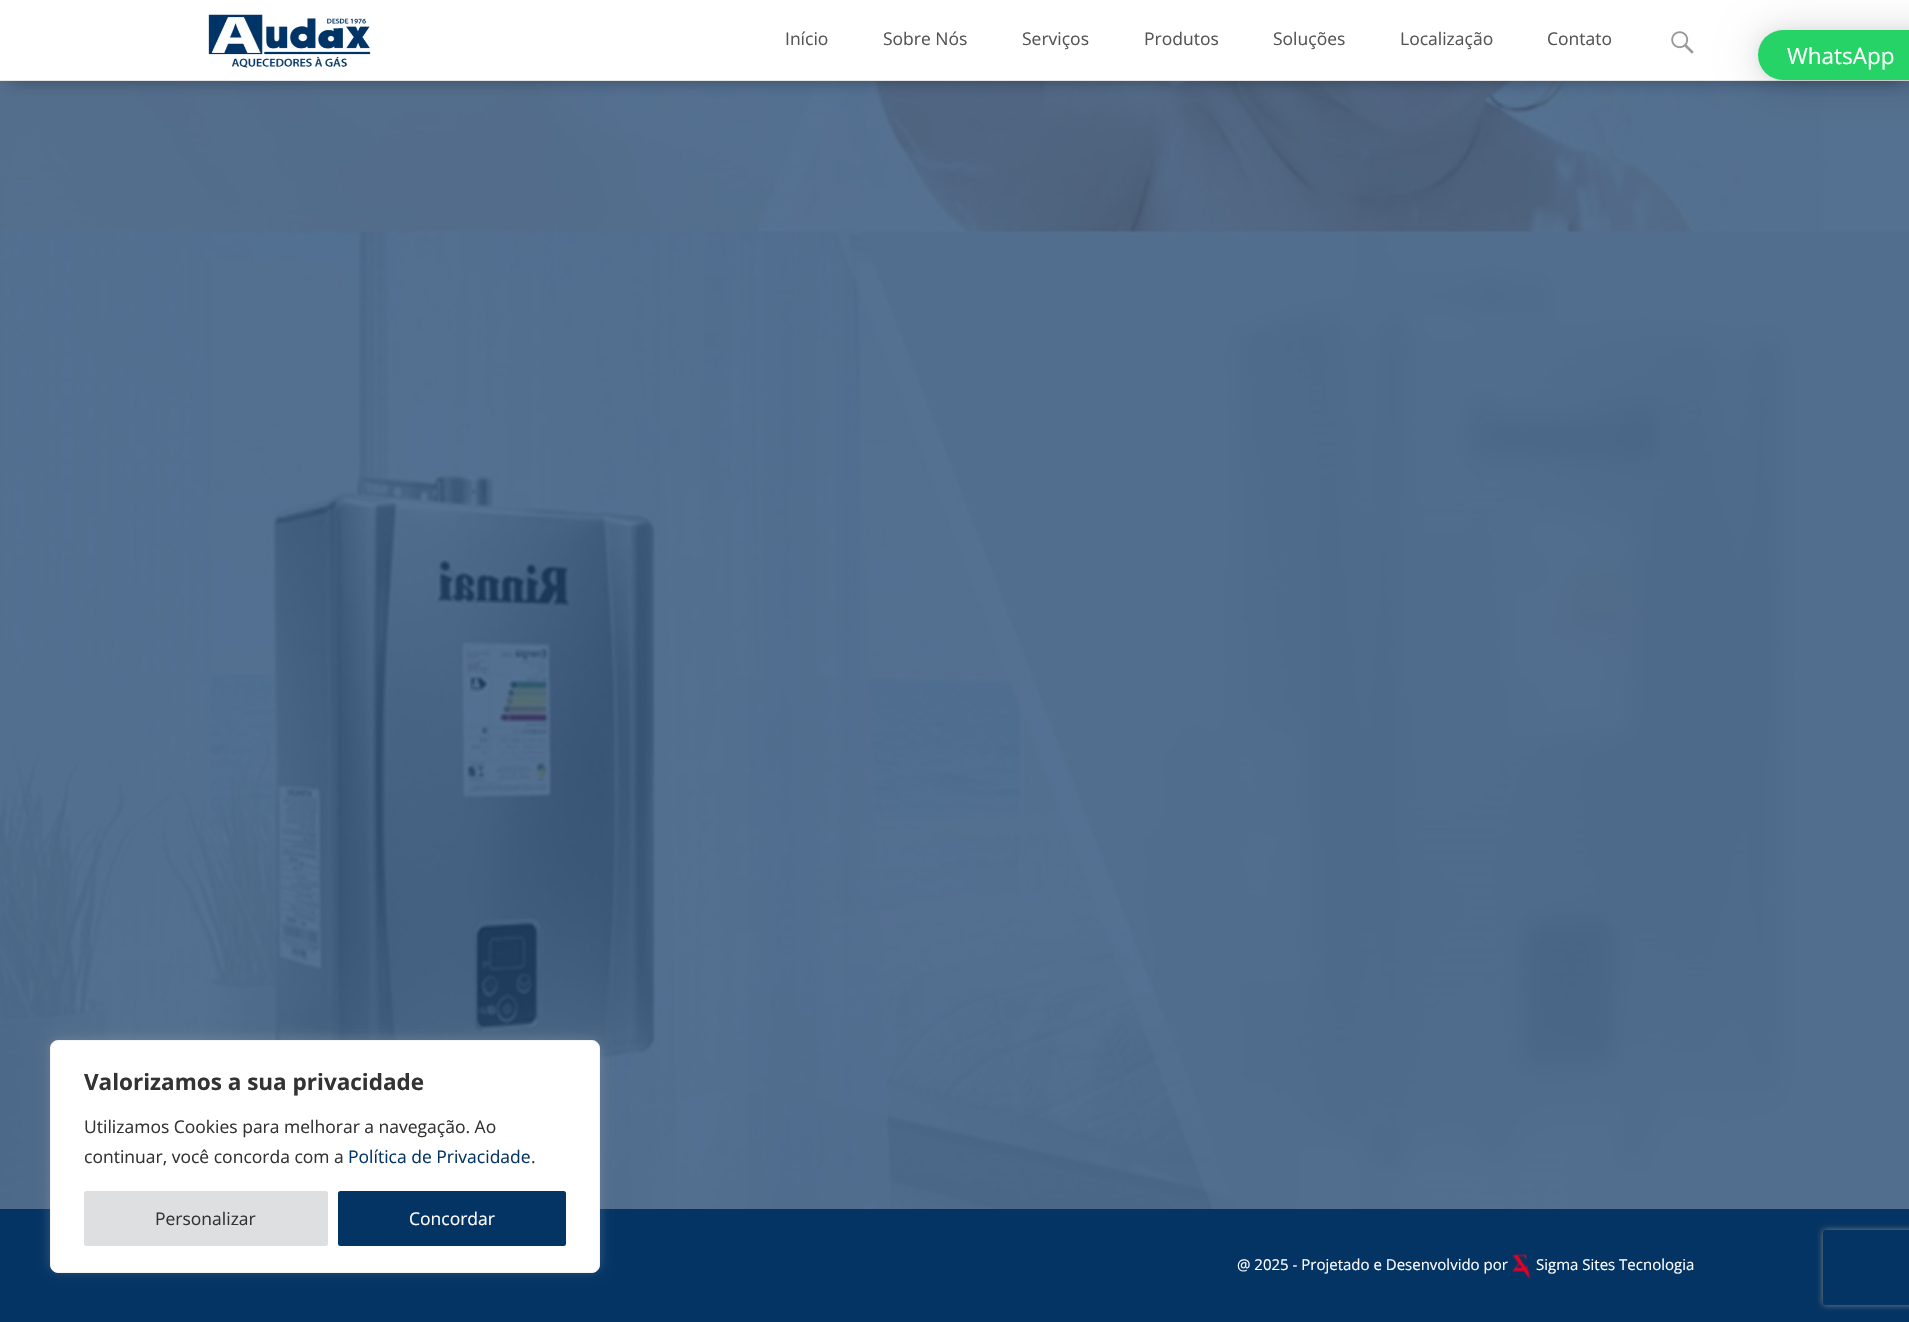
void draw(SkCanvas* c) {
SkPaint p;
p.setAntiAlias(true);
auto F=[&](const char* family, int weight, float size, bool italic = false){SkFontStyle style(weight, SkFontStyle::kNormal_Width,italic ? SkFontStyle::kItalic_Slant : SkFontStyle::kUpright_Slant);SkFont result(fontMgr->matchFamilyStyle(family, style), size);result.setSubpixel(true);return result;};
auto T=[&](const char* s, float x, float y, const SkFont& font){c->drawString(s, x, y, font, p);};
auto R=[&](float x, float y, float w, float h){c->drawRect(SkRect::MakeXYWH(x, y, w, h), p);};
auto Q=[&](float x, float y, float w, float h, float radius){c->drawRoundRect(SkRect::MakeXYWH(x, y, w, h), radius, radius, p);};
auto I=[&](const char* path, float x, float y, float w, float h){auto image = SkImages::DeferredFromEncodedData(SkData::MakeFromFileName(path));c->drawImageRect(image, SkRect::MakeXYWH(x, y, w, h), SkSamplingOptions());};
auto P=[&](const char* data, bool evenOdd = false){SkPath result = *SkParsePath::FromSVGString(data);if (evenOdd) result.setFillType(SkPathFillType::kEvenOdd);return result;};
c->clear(0xff043464);
I("3.png",0,81,1909,1128);
p.setColor(0x52000000);
p.setMaskFilter(SkMaskFilter::MakeBlur(kNormal_SkBlurStyle, 7.5));
c->drawRect(SkRect::MakeXYWH(10,20,1890,61),p);
p.setMaskFilter(nullptr);
p.setColor(0xffffffff);
R(0,0,1909,80);
p.setColor(0xffe7e7e7);
R(0,80,1909,1);
I("1.png",208,14,163,54);
auto f1 = F("Open Sans",400,17.5);
p.setColor(0xff545454);
T("Início",785,45,f1);
T("Sobre Nós",883,45,f1);
T("Serviços",1022,45,f1);
T("Produtos",1144,45,f1);
T("Soluções",1273,45,f1);
T("Localização",1400,45,f1);
T("Contato",1547,45,f1);
I("2.png",1671,31,23,23);
auto f2 = F("Open Sans",400,15);
p.setColor(0xffffffff);
T("@ 2025 - Projetado e Desenvolvido por",1237,1270,f2);
I("4.png",1512,1254,19,25);
T("Sigma Sites Tecnologia",1536,1270,f2);
p.setColor(0x29000000);
p.setMaskFilter(SkMaskFilter::MakeBlur(kNormal_SkBlurStyle, 20));
c->drawRoundRect(SkRect::MakeXYWH(1758,33,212,50),25,25,p);
p.setMaskFilter(nullptr);
p.setColor(0x0f000000);
p.setMaskFilter(SkMaskFilter::MakeBlur(kNormal_SkBlurStyle, 4));
c->drawRoundRect(SkRect::MakeXYWH(1758,31,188,50),25,25,p);
p.setMaskFilter(nullptr);
p.setColor(0xff25d366);
Q(1758,30,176,50,25);
auto f3 = F("Open Sans",400,22.5);
p.setColor(0xffffffff);
T("WhatsApp",1787,64,f3);
p.setColor(0x4dacabab);
p.setMaskFilter(SkMaskFilter::MakeBlur(kNormal_SkBlurStyle, 6));
c->drawRoundRect(SkRect::MakeXYWH(50,1039,550,232),8,8,p);
p.setMaskFilter(nullptr);
p.setColor(0xffffffff);
c->drawRoundRect(SkRect::MakeXYWH(50.5,1040.5,549,232),7.5,7.5,p);
p.setStroke(true);
p.setStrokeWidth(1);
p.setColor(0xfff4f4f4);
c->drawRoundRect(SkRect::MakeXYWH(50.5,1040.5,549,232),7.5,7.5,p);
auto f4 = F("Open Sans",700,22.5);
p.setStroke(false);
p.setColor(0xff333333);
T("Valorizamos a sua privacidade",84,1090,f4);
T("Utilizamos Cookies para melhorar a navegação. Ao",84,1133,f1);
T("continuar, você concorda com a",84,1163,f1);
p.setColor(0xff043464);
T("Política de Privacidade",348,1163,f1);
p.setColor(0xff333333);
T(".",531,1163,f1);
p.setColor(0xffdedfe0);
c->drawRoundRect(SkRect::MakeXYWH(85.5,1192.5,241,52),1,1,p);
p.setStroke(true);
p.setStrokeWidth(3);
c->drawRoundRect(SkRect::MakeXYWH(85.5,1192.5,241,52),1,1,p);
p.setStroke(false);
p.setColor(0xff333333);
T("Personalizar",155,1225,f1);
p.setColor(0xff043464);
c->drawRoundRect(SkRect::MakeXYWH(339.5,1192.5,225,52),1,1,p);
p.setStroke(true);
c->drawRoundRect(SkRect::MakeXYWH(339.5,1192.5,225,52),1,1,p);
p.setStroke(false);
p.setColor(0xffffffff);
T("Concordar",409,1225,f1);
c->save();
c->clipPath(P("M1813 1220h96v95h-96zm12.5 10h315c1.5 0 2.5 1 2.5 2.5v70c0 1.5-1 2.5-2.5 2.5h-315c-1.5 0-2.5-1-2.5-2.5v-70c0-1.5 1-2.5 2.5-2.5z",true),true);
p.setColor(0xff808080);
p.setMaskFilter(SkMaskFilter::MakeBlur(kNormal_SkBlurStyle, 3));
c->drawRoundRect(SkRect::MakeXYWH(1823,1230,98,75),2.5,2.5,p);
p.setMaskFilter(nullptr);
c->restore();
}
